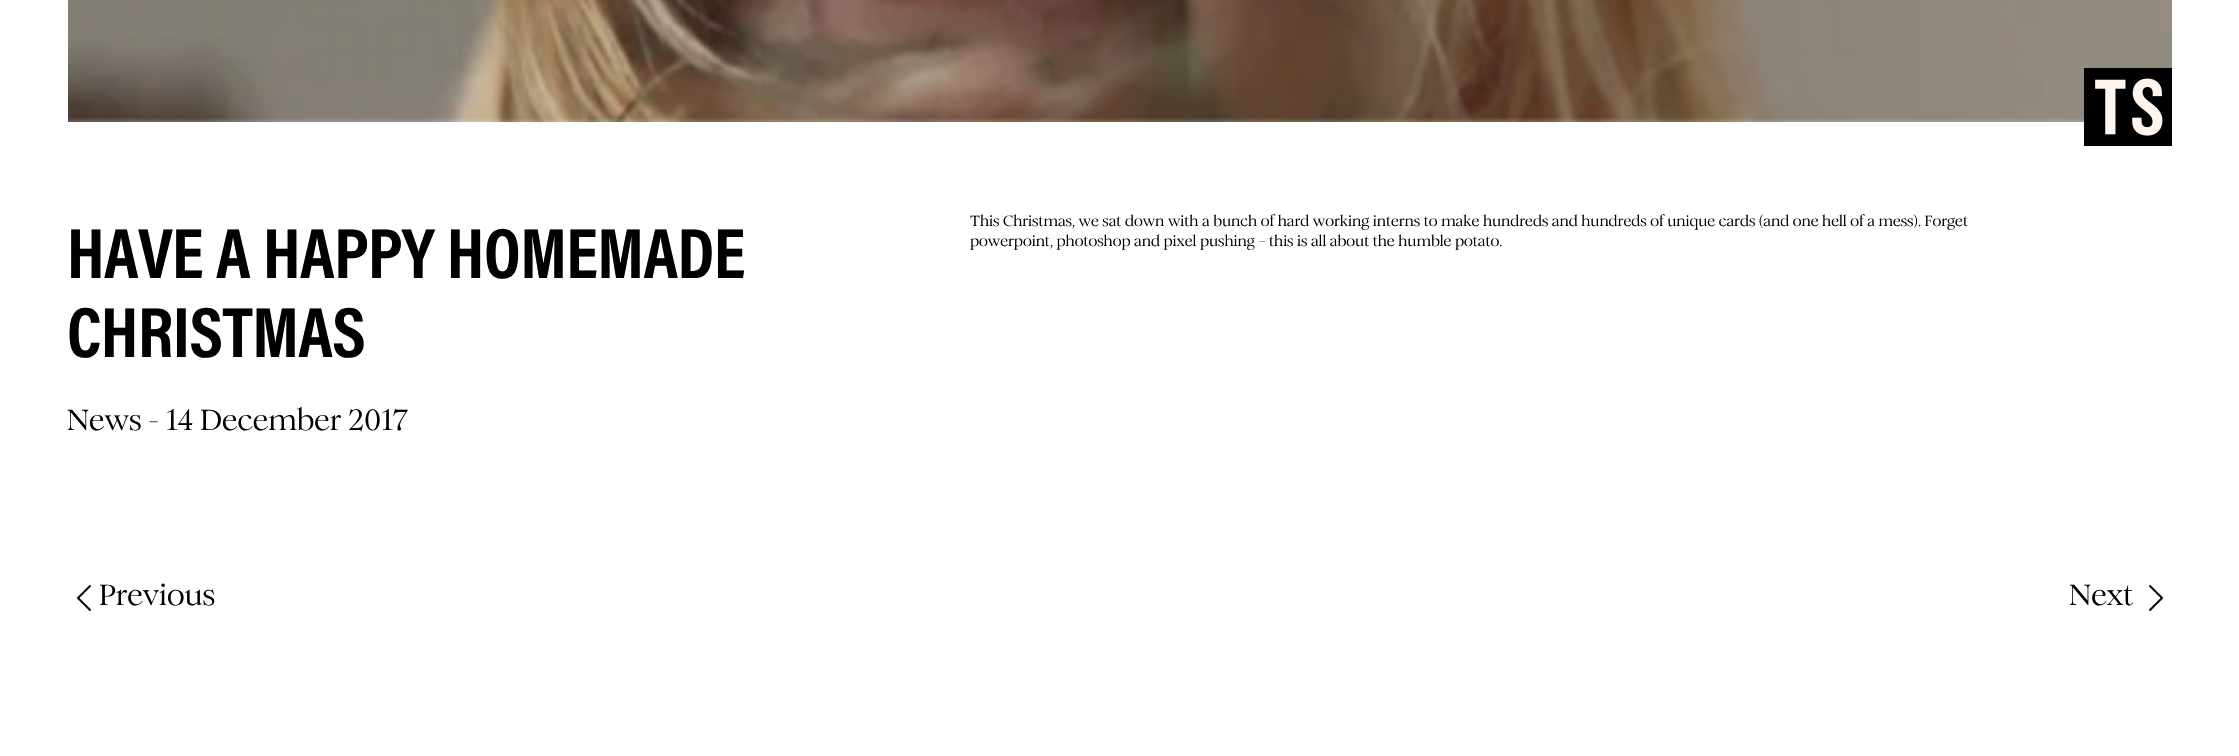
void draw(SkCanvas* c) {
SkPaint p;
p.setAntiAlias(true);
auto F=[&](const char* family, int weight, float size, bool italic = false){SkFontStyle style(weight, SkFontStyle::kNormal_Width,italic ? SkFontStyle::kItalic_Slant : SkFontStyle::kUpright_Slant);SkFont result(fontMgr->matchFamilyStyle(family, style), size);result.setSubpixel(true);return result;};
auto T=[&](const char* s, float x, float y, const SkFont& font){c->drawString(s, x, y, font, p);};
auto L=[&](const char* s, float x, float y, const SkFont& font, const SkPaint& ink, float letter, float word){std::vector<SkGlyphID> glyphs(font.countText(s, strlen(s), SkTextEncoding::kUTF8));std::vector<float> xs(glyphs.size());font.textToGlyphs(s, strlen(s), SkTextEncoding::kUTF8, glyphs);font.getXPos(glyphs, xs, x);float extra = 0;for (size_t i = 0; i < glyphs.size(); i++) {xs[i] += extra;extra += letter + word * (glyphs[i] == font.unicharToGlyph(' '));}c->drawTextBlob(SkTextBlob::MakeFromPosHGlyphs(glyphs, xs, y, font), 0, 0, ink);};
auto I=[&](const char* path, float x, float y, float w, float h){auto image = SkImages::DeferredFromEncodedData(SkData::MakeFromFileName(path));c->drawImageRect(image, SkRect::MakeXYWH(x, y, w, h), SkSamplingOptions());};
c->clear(0xffffffff);
I("2.png",68,0,2104,122);
I("1.png",2084,68,88,78);
auto f1 = F("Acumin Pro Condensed",700,71.75);
p.setColor(0xff000000);
L("HAVE A HAPPY HOMEMADE",67,278,f1,p,-.5,0);
L("CHRISTMAS",67,357,f1,p,-.5,0);
auto f2 = F("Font",500,28.75);
T("News - 14 December 2017",67,430,f2);
auto f3 = F("Font",500,14.55);
T("This Christmas, we sat down with a bunch of hard working interns to make hundreds and hundreds of unique cards (and one hell of a mess). Forget",970,226,f3);
T("powerpoint, photoshop and pixel pushing – this is all about the humble potato.",970,246,f3);
I("3.png",77,585,14,26);
auto f4 = F("Font",500,29);
T("Previous",99,605,f4);
T("Next",2069,605,f4);
I("4.png",2149,585,14,26);
}
